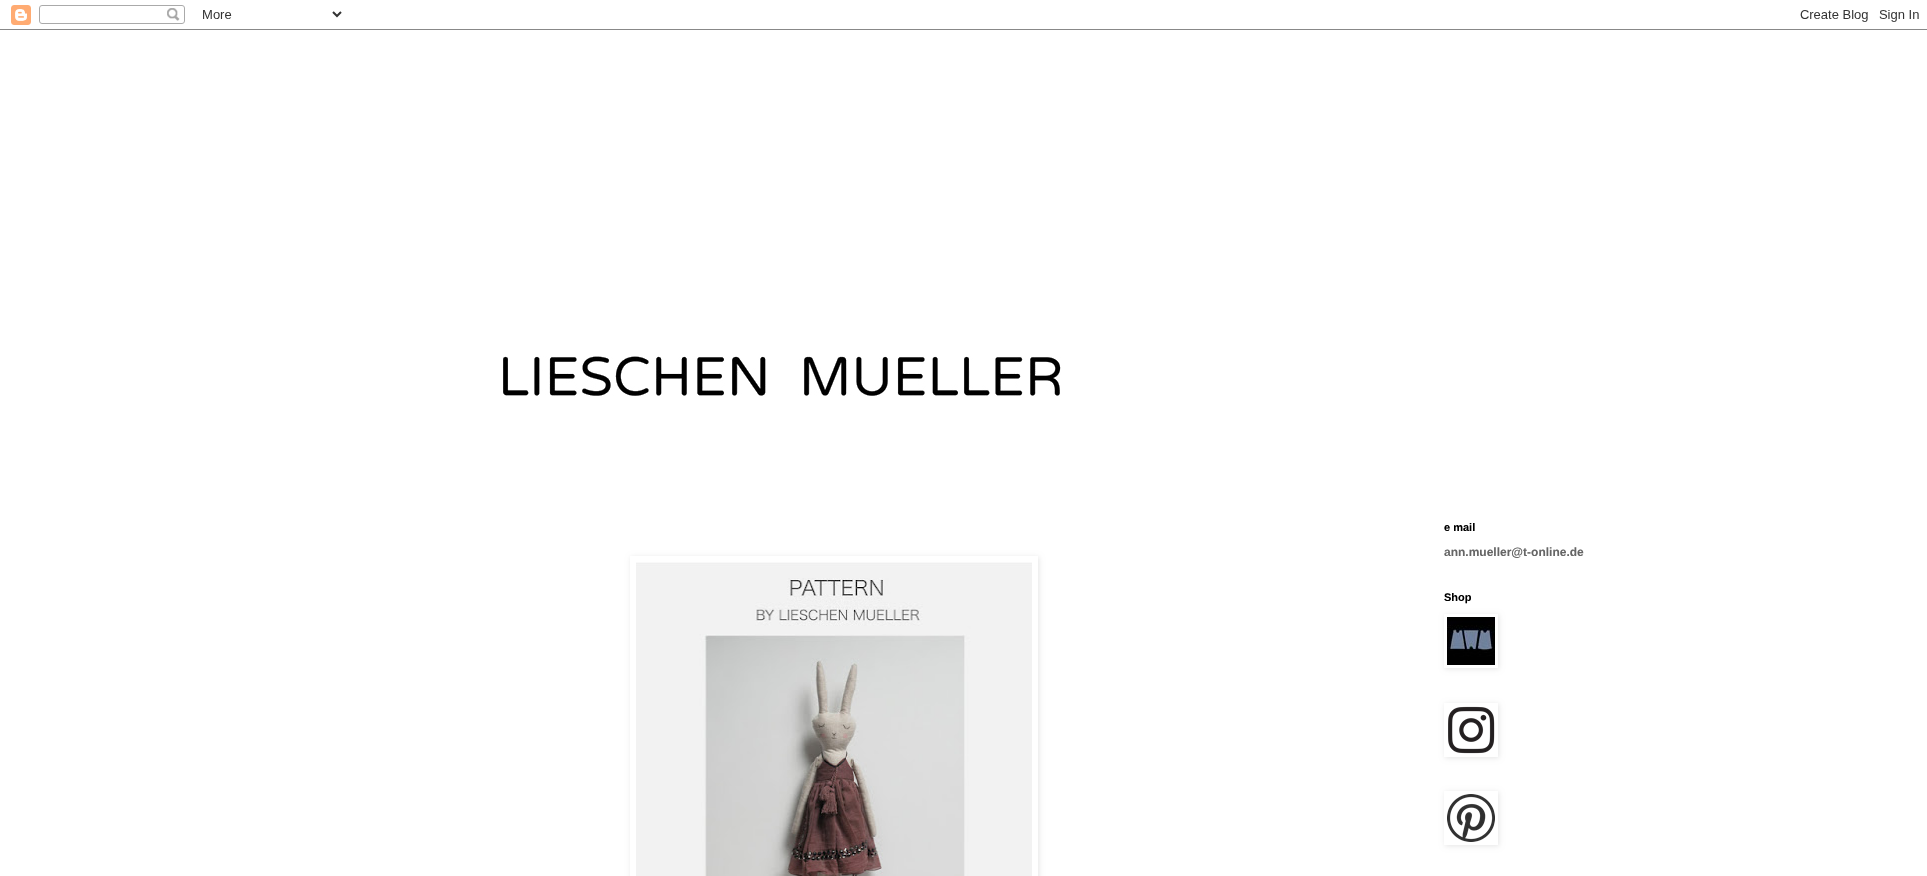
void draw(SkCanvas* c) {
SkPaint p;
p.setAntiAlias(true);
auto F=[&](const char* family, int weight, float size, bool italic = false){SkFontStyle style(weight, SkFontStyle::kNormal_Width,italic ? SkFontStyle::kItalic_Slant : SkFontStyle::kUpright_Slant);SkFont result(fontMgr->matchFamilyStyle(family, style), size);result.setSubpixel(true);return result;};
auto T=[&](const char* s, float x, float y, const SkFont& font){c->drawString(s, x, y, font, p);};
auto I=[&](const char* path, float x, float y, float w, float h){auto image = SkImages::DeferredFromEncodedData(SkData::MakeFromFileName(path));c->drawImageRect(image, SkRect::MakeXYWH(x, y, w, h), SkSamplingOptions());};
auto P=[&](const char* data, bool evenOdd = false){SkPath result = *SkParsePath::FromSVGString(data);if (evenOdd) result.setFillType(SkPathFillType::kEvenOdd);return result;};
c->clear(0xffffffff);
I("1.png",0,5,1927,25);
I("2.png",503,356,558,40);
c->save();
c->clipPath(P("M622 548h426v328h-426zm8 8h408v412h-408z",true),true);
p.setColor(0x1a000000);
p.setMaskFilter(SkMaskFilter::MakeBlur(kNormal_SkBlurStyle, 2.5));
c->drawRect(SkRect::MakeXYWH(631,557,408,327),p);
p.setMaskFilter(nullptr);
c->restore();
I("3.png",636,562,396,314);
auto f1 = F("Liberation Sans",700,11);
p.setColor(0xff000000);
T("e mail",1444,531,f1);
auto f2 = F("Liberation Sans",700,12);
p.setColor(0xff666666);
T("ann.mueller@t-online.de",1444,556,f2);
p.setColor(0xff000000);
T("Shop",1444,601,f1);
c->save();
c->clipPath(P("M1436 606h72v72h-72zm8 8h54v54h-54z",true),true);
p.setColor(0x1a000000);
p.setMaskFilter(SkMaskFilter::MakeBlur(kNormal_SkBlurStyle, 2.5));
c->drawRect(SkRect::MakeXYWH(1445,615,54,54),p);
p.setMaskFilter(nullptr);
c->restore();
I("4.png",1447,617,48,48);
c->save();
c->clipPath(P("M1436 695h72v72h-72zm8 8h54v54h-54z",true),true);
p.setMaskFilter(SkMaskFilter::MakeBlur(kNormal_SkBlurStyle, 2.5));
c->drawRect(SkRect::MakeXYWH(1445,704,54,54),p);
p.setMaskFilter(nullptr);
c->restore();
I("5.png",1448,706,47,48);
c->save();
c->clipPath(P("M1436 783h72v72h-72zm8 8h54v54h-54z",true),true);
p.setMaskFilter(SkMaskFilter::MakeBlur(kNormal_SkBlurStyle, 2.5));
c->drawRect(SkRect::MakeXYWH(1445,792,54,54),p);
p.setMaskFilter(nullptr);
c->restore();
I("6.png",1447,794,48,48);
}
